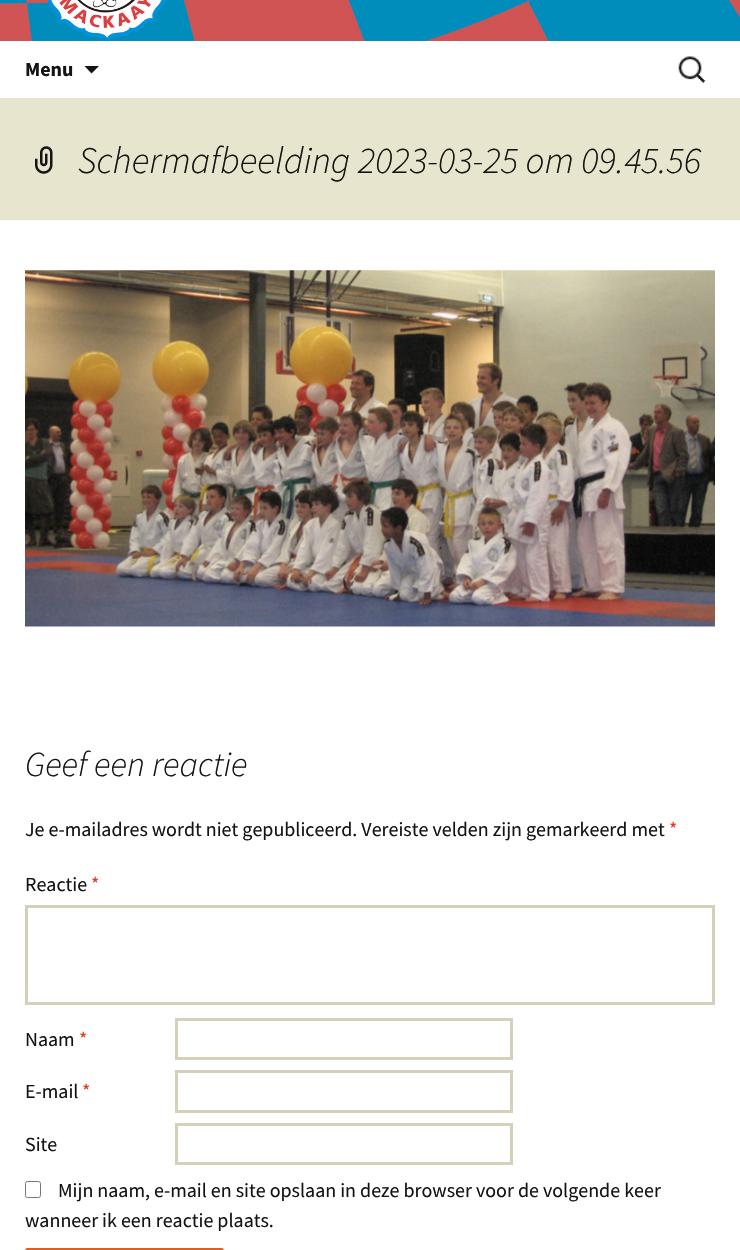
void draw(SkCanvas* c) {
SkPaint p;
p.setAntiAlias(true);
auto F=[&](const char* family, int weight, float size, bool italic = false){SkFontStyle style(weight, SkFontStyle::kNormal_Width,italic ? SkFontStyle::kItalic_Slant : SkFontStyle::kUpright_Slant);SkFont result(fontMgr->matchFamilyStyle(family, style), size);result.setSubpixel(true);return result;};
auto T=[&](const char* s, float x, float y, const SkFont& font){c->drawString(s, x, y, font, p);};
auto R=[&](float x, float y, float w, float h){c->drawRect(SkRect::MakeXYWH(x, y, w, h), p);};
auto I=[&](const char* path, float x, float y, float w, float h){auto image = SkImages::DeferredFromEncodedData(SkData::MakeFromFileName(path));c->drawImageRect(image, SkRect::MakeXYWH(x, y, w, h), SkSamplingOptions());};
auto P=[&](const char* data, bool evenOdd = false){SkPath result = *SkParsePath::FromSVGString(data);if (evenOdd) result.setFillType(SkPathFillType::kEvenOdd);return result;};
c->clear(0xffffffff);
I("1.png",0,0,740,41);
I("2.png",47,0,119,42);
auto f1 = F("Source Sans Pro",700,20);
p.setColor(0xff141412);
T("Menu",25,76,f1);
c->drawPath(P("M84.5 66l7 7.5l7.5-7.5z"),p);
I("3.png",678,56,28,27);
p.setColor(0xffe8e5ce);
R(0,98,740,122);
I("4.png",35,146,18,28);
auto f2 = F("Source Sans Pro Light",300,37.5,true);
p.setColor(0xff141412);
T("Schermafbeelding 2023-03-25 om 09.45.56",78,173,f2);
I("5.png",25,270,690,357);
auto f3 = F("Source Sans Pro Light",300,35,true);
T("Geef een reactie",25,776,f3);
auto f4 = F("Source Sans Pro",400,20);
T("Je e-mailadres wordt niet gepubliceerd. Vereiste velden zijn gemarkeerd met",25,836,f4);
p.setColor(0xffed331c);
T("*",669,836,f4);
p.setColor(0xff141412);
T("Reactie",25,891,f4);
p.setColor(0xffed331c);
T("*",91,891,f4);
p.setStroke(true);
p.setStrokeWidth(3);
p.setColor(0xffd4d0ba);
c->drawRect(SkRect::MakeXYWH(26.5,906.5,687,97),p);
p.setStroke(false);
p.setColor(0xff141412);
T("Naam",25,1046,f4);
p.setColor(0xffed331c);
T("*",79,1046,f4);
p.setStroke(true);
p.setColor(0xffd4d0ba);
c->drawRect(SkRect::MakeXYWH(176.5,1019.5,335,39),p);
p.setStroke(false);
p.setColor(0xff141412);
T("E-mail",25,1098,f4);
p.setColor(0xffed331c);
T("*",82,1098,f4);
p.setStroke(true);
p.setColor(0xffd4d0ba);
c->drawRect(SkRect::MakeXYWH(176.5,1071.5,335,40),p);
p.setStroke(false);
p.setColor(0xff141412);
T("Site",25,1151,f4);
p.setStroke(true);
p.setColor(0xffd4d0ba);
c->drawRect(SkRect::MakeXYWH(176.5,1124.5,335,39),p);
p.setStrokeWidth(1);
p.setColor(0xff767676);
c->drawRoundRect(SkRect::MakeXYWH(25.5,1181.5,15,16),2,2,p);
p.setStroke(false);
p.setColor(0xff141412);
T("Mijn naam, e-mail en site opslaan in deze browser voor de volgende keer",58,1197,f4);
T("wanneer ik een reactie plaats.",25,1227,f4);
{
const SkColor colors[] = {0xffe05d22,0xffd94412};
const float stops[] = {0,1};
const SkPoint ends[] = {{124,1248}, {124,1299}};
p.setShader(SkGradientShader::MakeLinear(ends, colors, stops, 2, SkTileMode::kClamp));
p.setAlpha(255);
}
c->drawPath(P("M27.5 1248h194c1.5 0 2.5 1 2.5 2.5v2.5h-199v-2.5c0-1.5 1-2.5 2.5-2.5z"),p);
}
